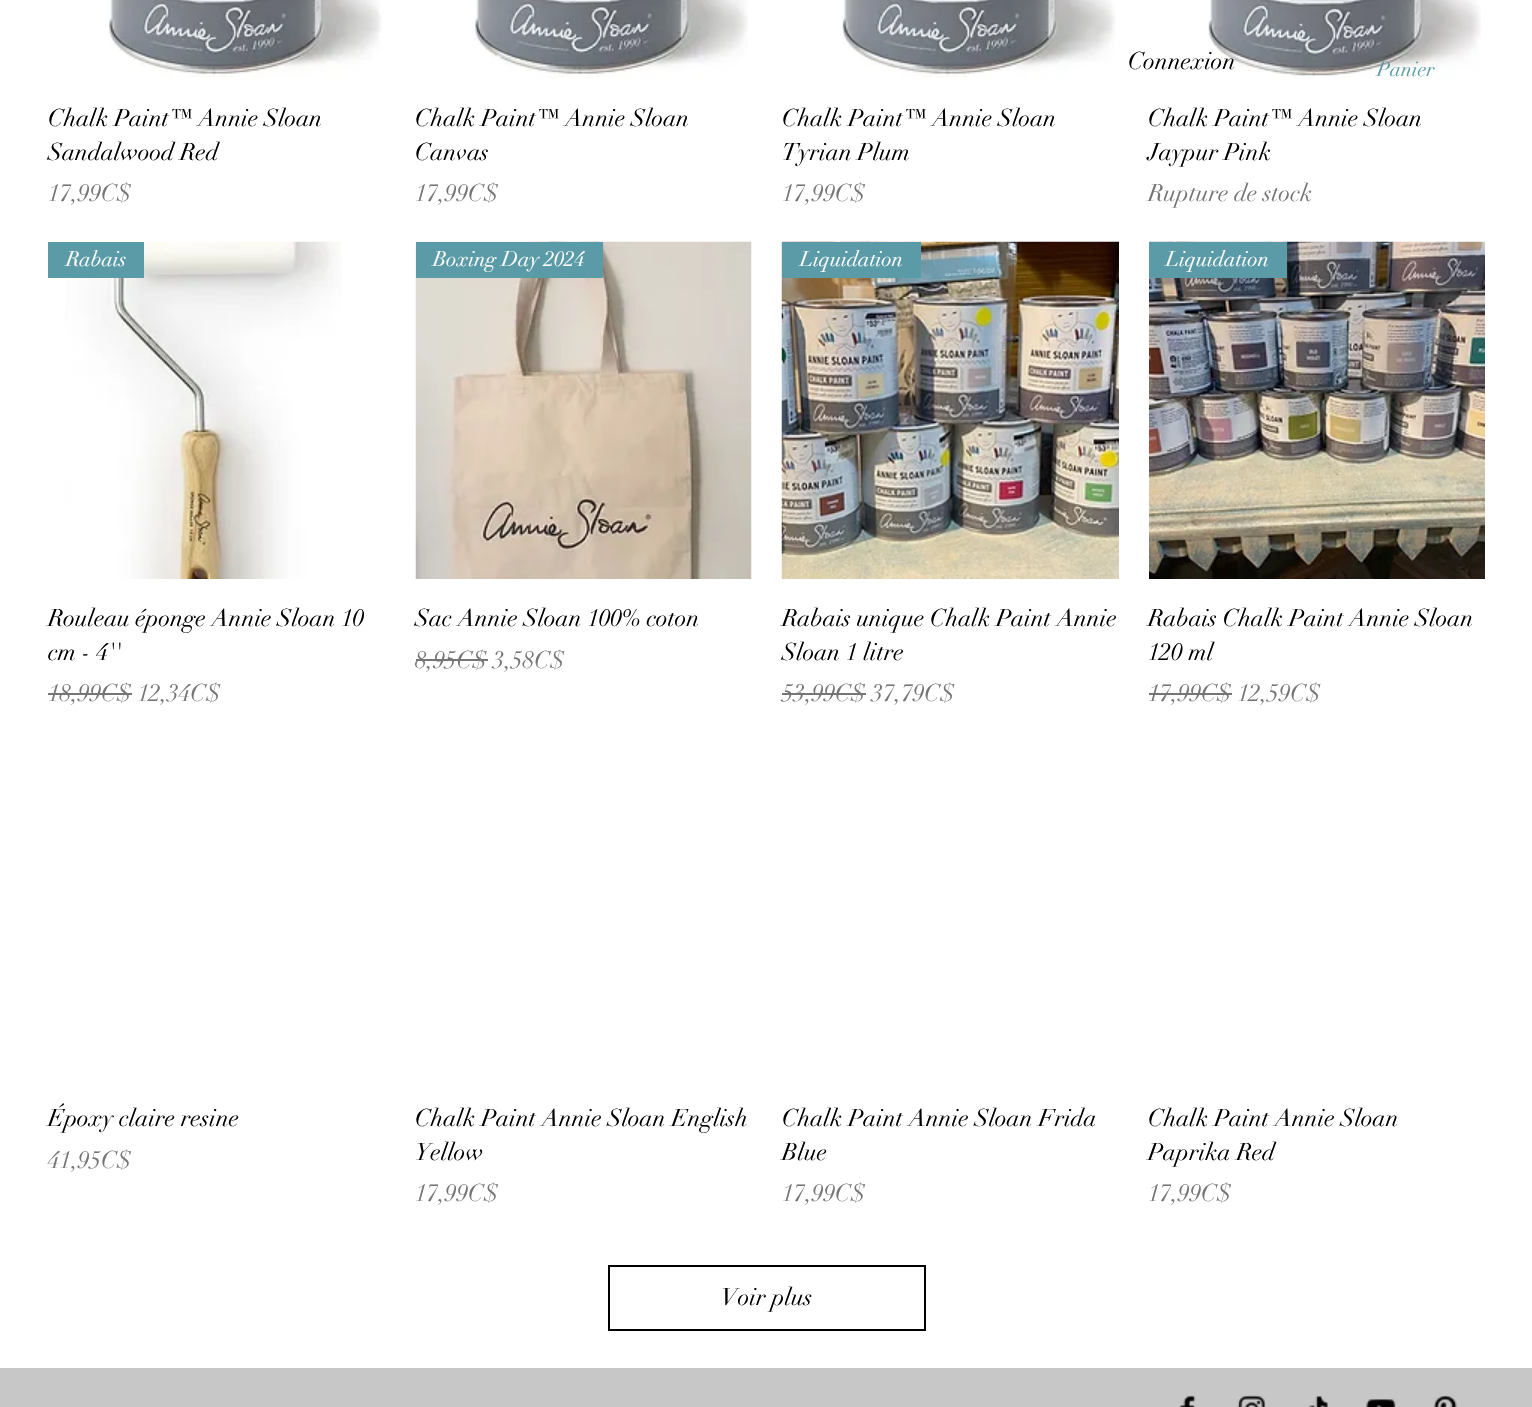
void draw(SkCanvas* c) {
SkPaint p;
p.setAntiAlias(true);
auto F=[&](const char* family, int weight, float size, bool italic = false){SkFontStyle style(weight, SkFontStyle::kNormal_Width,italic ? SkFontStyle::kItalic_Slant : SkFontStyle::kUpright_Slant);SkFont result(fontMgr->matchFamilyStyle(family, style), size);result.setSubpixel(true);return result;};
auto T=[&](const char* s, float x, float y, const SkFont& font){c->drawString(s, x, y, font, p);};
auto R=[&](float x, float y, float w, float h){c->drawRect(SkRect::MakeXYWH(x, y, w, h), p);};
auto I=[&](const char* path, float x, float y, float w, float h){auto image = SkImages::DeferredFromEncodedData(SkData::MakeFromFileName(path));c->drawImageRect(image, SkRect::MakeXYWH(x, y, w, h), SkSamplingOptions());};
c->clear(0xffffffff);
I("4.png",1208,0,273,78);
auto f1 = F("didot",400,24);
p.setColor(0xff000000);
T("Connexion",1128,69,f1);
auto f2 = F("didot",400,20.5);
p.setColor(0xff5a9ba7);
T("Panier",1377,76,f2);
I("1.png",109,0,273,78);
p.setColor(0xff000000);
T("Chalk Paint™ Annie Sloan",48,126,f1);
T("Sandalwood Red",48,160,f1);
p.setColor(0xff757575);
T("17,99C$",48,201,f1);
I("2.png",474,0,274,78);
p.setColor(0xff000000);
T("Chalk Paint™ Annie Sloan",415,126,f1);
T("Canvas",415,160,f1);
p.setColor(0xff757575);
T("17,99C$",415,201,f1);
I("3.png",842,0,274,78);
p.setColor(0xff000000);
T("Chalk Paint™ Annie Sloan",782,126,f1);
T("Tyrian Plum",782,160,f1);
p.setColor(0xff757575);
T("17,99C$",782,201,f1);
p.setColor(0xff000000);
T("Chalk Paint™ Annie Sloan",1148,126,f1);
T("Jaypur Pink",1148,160,f1);
p.setColor(0xff757575);
T("Rupture de stock",1148,201,f1);
I("5.png",65,241,277,338);
p.setColor(0xff5a9ba7);
R(48,242,96,36);
auto f3 = F("didot",400,21);
p.setColor(0xffffffff);
T("Rabais",66,266,f3);
p.setColor(0xff000000);
T("Rouleau éponge Annie Sloan 10",48,626,f1);
T("cm - 4''",48,660,f1);
p.setColor(0xff757575);
T("18,99C$ 12,34C$",48,701,f1);
R(48,693,84,2);
I("6.png",415,241,337,338);
p.setColor(0xff5a9ba7);
R(416,242,187,36);
p.setColor(0xffffffff);
T("Boxing Day 2024",433,266,f3);
p.setColor(0xff000000);
T("Sac Annie Sloan 100% coton",415,626,f1);
p.setColor(0xff757575);
T("8,95C$ 3,58C$",415,668,f1);
R(416,659,72,2);
I("7.png",781,241,338,338);
p.setColor(0xff5a9ba7);
R(782,242,139,36);
p.setColor(0xffffffff);
T("Liquidation",800,266,f3);
p.setColor(0xff000000);
T("Rabais unique Chalk Paint Annie",782,626,f1);
T("Sloan 1 litre",782,660,f1);
p.setColor(0xff757575);
T("53,99C$ 37,79C$",782,701,f1);
R(782,693,84,2);
I("8.png",1149,241,336,338);
p.setColor(0xff5a9ba7);
R(1149,242,138,36);
p.setColor(0xffffffff);
T("Liquidation",1166,266,f3);
p.setColor(0xff000000);
T("Rabais Chalk Paint Annie Sloan",1148,626,f1);
T("120 ml",1148,660,f1);
p.setColor(0xff757575);
T("17,99C$ 12,59C$",1148,701,f1);
R(1149,693,83,2);
p.setColor(0xff000000);
T("Époxy claire resine",48,1126,f1);
p.setColor(0xff757575);
T("41,95C$",48,1168,f1);
p.setColor(0xff000000);
T("Chalk Paint Annie Sloan English",415,1126,f1);
T("Yellow",415,1160,f1);
p.setColor(0xff757575);
T("17,99C$",415,1201,f1);
p.setColor(0xff000000);
T("Chalk Paint Annie Sloan Frida",782,1126,f1);
T("Blue",782,1160,f1);
p.setColor(0xff757575);
T("17,99C$",782,1201,f1);
p.setColor(0xff000000);
T("Chalk Paint Annie Sloan",1148,1126,f1);
T("Paprika Red",1148,1160,f1);
p.setColor(0xff757575);
T("17,99C$",1148,1201,f1);
p.setStroke(true);
p.setStrokeWidth(2);
p.setColor(0xff000000);
c->drawRect(SkRect::MakeXYWH(609,1266,316,64),p);
p.setStroke(false);
T("Voir plus",721,1305,f1);
p.setColor(0xffc7c7c7);
R(0,1368,1532,39);
I("9.png",1179,1395,17,12);
I("10.png",1237,1395,29,12);
I("11.png",1308,1396,20,11);
I("12.png",1366,1399,30,8);
I("13.png",1433,1395,24,12);
}
